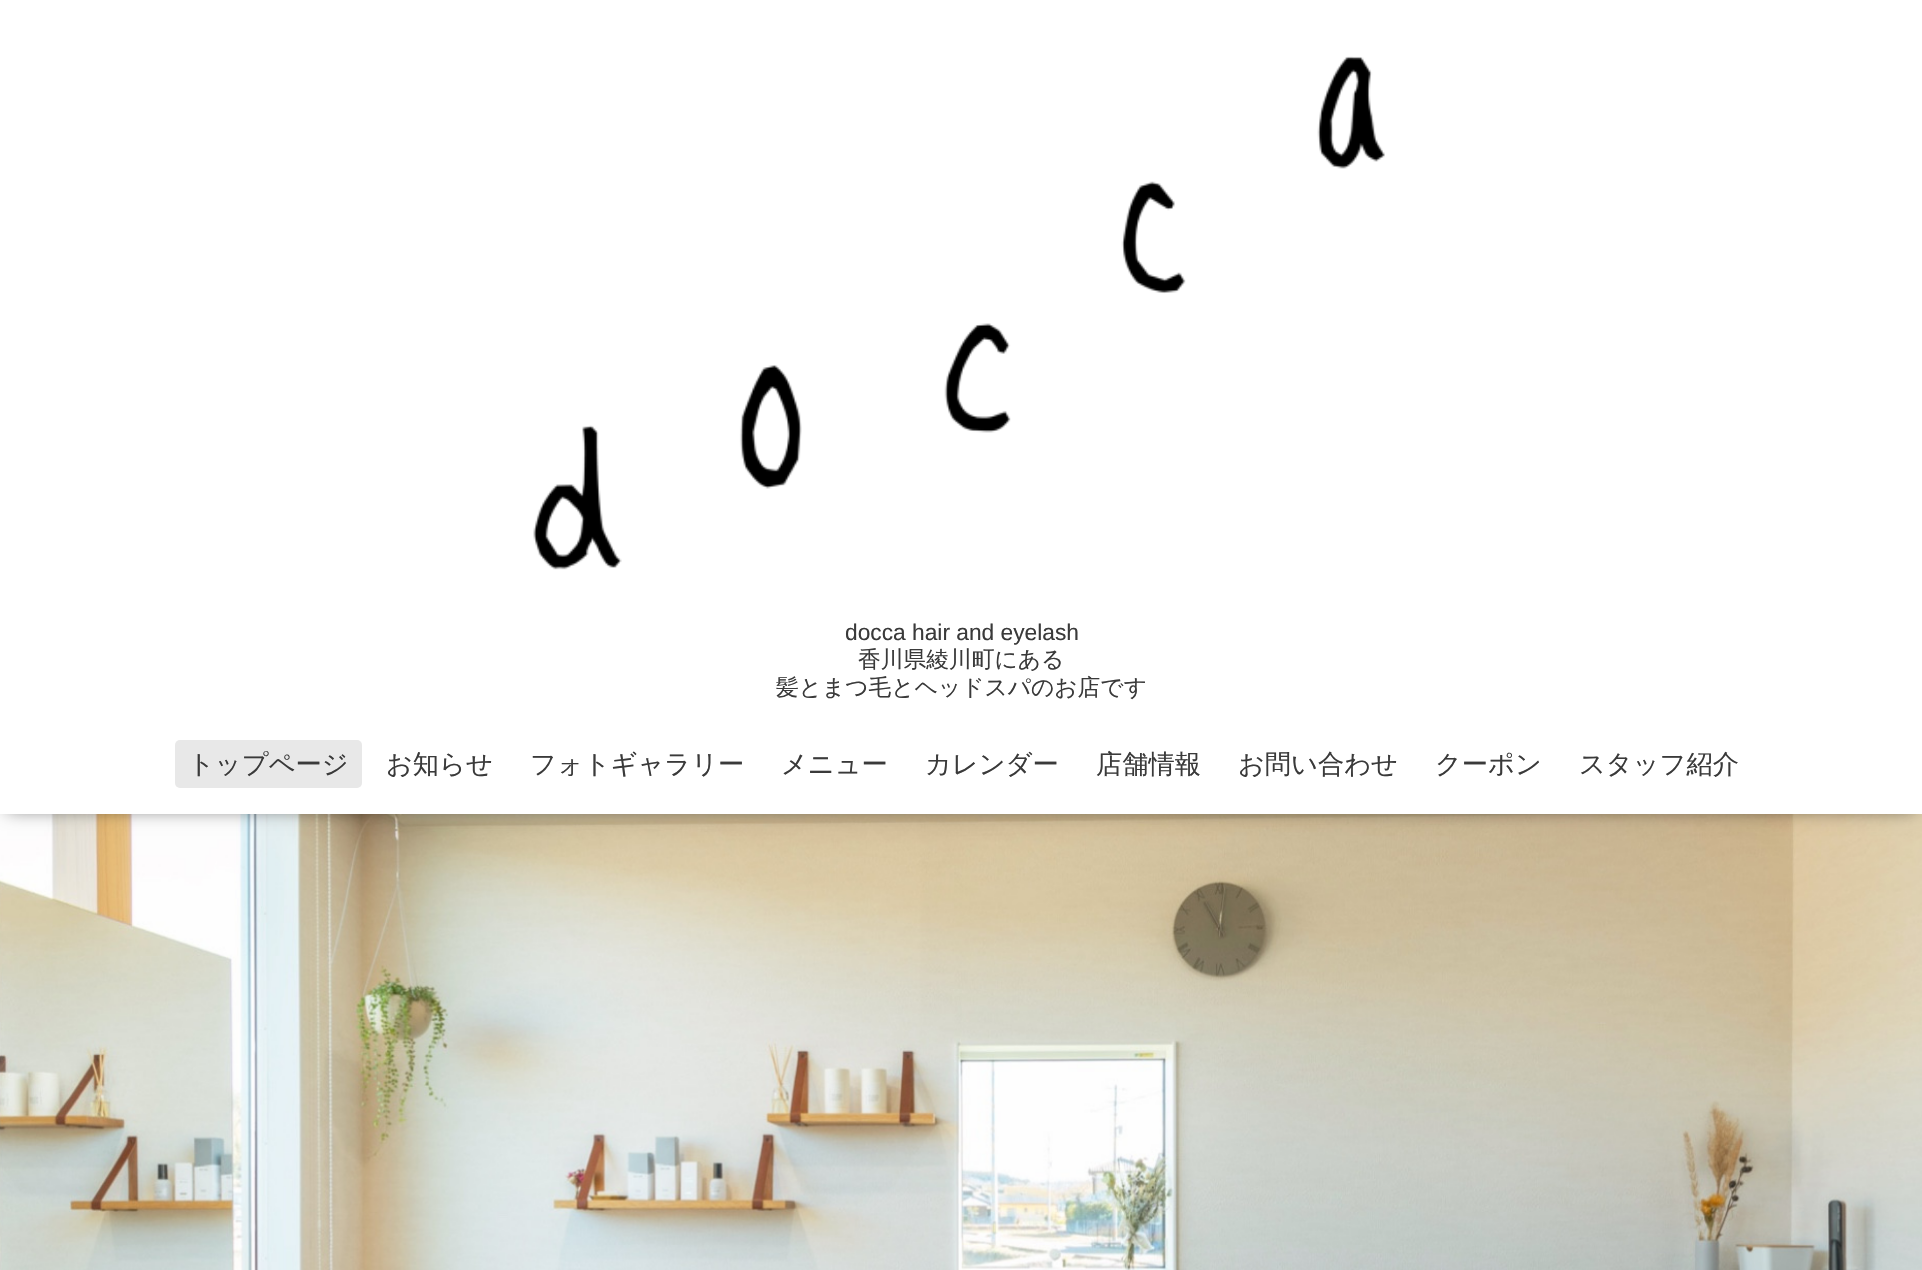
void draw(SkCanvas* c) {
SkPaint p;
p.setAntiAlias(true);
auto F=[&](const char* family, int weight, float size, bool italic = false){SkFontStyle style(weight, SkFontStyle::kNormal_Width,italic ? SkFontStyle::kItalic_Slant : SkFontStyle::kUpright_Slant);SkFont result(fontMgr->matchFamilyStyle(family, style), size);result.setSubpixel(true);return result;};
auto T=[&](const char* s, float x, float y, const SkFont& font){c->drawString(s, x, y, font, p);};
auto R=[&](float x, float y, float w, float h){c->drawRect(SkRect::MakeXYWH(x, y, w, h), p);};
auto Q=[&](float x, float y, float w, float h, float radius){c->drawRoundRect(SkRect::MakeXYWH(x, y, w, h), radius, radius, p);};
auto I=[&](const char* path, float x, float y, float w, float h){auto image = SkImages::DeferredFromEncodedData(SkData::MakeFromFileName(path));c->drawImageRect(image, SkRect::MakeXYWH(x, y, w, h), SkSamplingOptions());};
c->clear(0xffffffff);
I("2.png",0,814,1922,456);
p.setColor(0x99000000);
p.setMaskFilter(SkMaskFilter::MakeBlur(kNormal_SkBlurStyle, 9));
c->drawRect(SkRect::MakeXYWH(7,9,1909,800),p);
p.setMaskFilter(nullptr);
p.setColor(0xffffffff);
R(0,0,1922,814);
I("1.png",533,56,852,514);
auto f1 = F("Liberation Sans",400,22.75);
p.setColor(0xff3a3a3a);
T("docca hair and eyelash",845,640,f1);
auto f2 = F("WenQuanYi Zen Hei",500,22.75);
T("香川県綾川町にある",858,667,f2);
T("髪とまつ毛とヘッドスパのお店です",776,695,f2);
p.setColor(0xffe8e8e8);
Q(175,740,187,48,5);
auto f3 = F("WenQuanYi Zen Hei",500,26.25);
p.setColor(0xff3a3a3a);
T("トップページ",188,773,f3);
T("お知らせ",386,773,f3);
T("フォトギャラリー",530,773,f3);
T("メニュー",781,773,f3);
T("カレンダー",925,773,f3);
T("店舗情報",1096,773,f3);
T("お問い合わせ",1238,773,f3);
T("クーポン",1435,773,f3);
T("スタッフ紹介",1579,773,f3);
}
